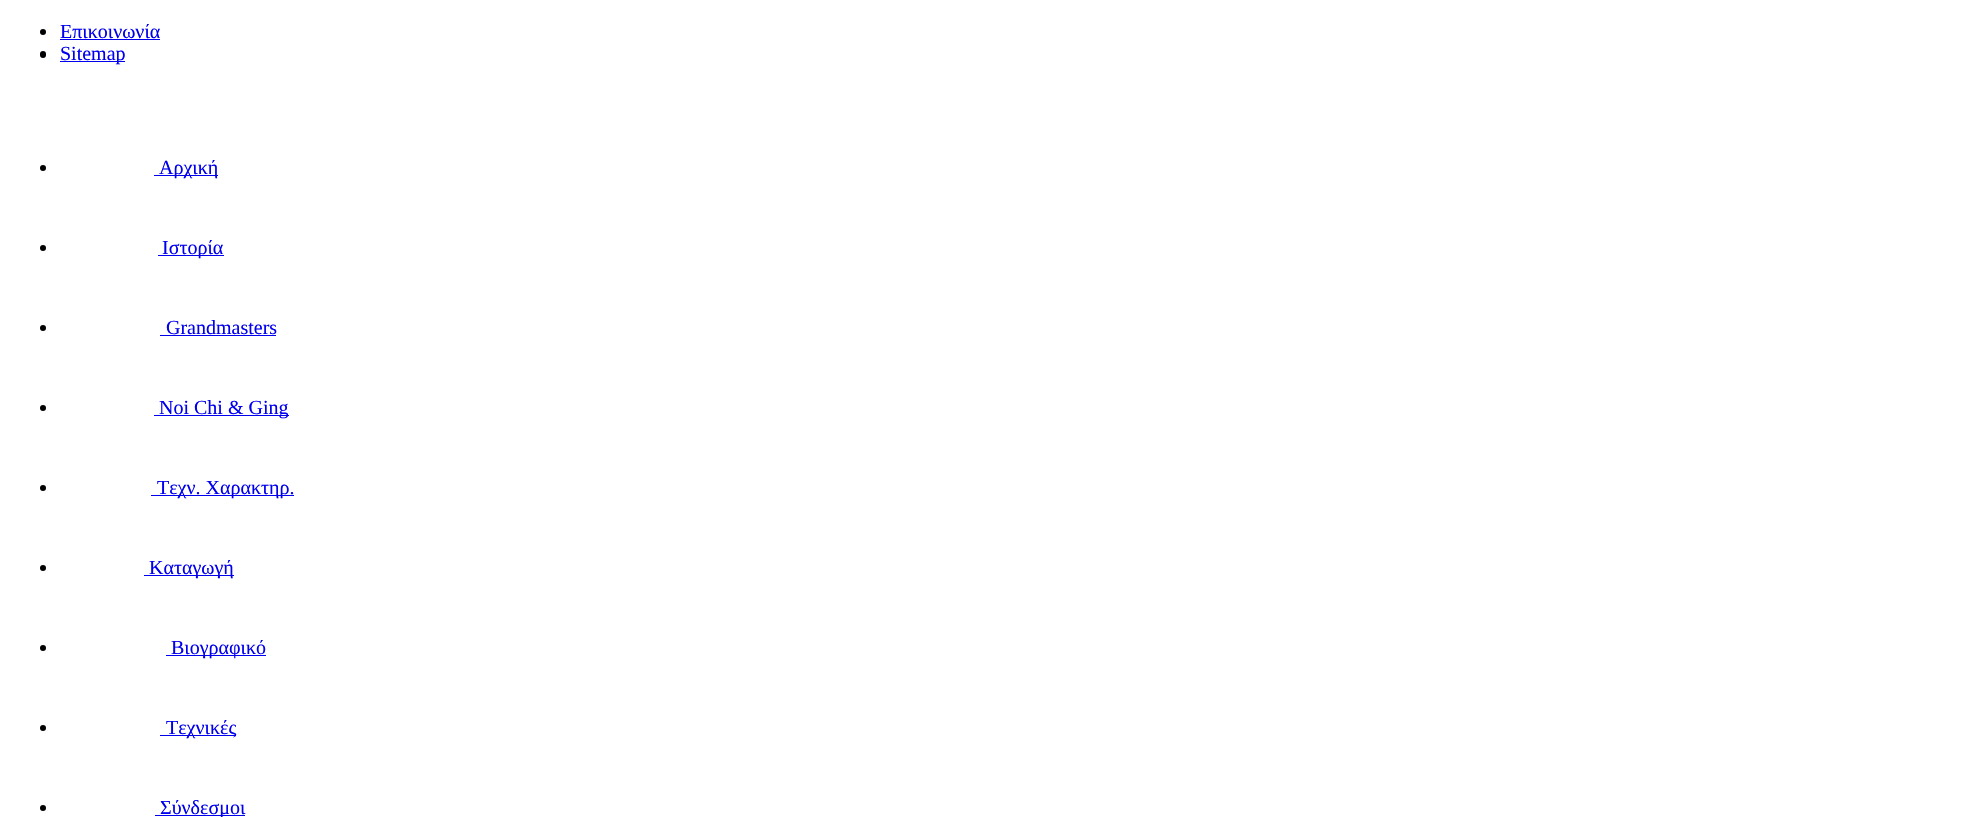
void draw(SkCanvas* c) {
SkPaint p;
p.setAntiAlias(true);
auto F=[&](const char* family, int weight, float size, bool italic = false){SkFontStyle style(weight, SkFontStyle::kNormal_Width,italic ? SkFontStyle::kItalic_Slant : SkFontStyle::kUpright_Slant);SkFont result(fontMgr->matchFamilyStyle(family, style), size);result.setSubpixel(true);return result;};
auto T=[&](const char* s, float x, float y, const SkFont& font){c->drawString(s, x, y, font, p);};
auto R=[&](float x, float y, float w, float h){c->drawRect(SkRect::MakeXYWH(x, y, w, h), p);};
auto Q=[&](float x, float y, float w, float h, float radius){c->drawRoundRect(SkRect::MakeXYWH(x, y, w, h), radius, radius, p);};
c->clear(0xffffffff);
p.setColor(0xff000000);
c->drawCircle(43,32,3,p);
auto f1 = F("Liberation Serif",400,20);
p.setColor(0xff0000ee);
T("Επικοινωνία",60,38,f1);
R(60,39,100,1);
p.setColor(0xff000000);
Q(40,51,6,7,3);
p.setColor(0xff0000ee);
R(60,61,65,1);
T("Sitemap",60,60,f1);
p.setColor(0xff000000);
c->drawCircle(43,168,3,p);
p.setColor(0xff0000ee);
R(154,175,64,1);
T("Αρχική",159,174,f1);
p.setColor(0xff000000);
c->drawCircle(43,248,3,p);
p.setColor(0xff0000ee);
R(158,255,66,1);
T("Ιστορία",162,254,f1);
p.setColor(0xff000000);
c->drawCircle(43,328,3,p);
p.setColor(0xff0000ee);
T("Grandmasters",166,334,f1);
R(160,335,116,1);
p.setColor(0xff000000);
c->drawCircle(43,408,3,p);
p.setColor(0xff0000ee);
R(154,415,135,1);
T("Noi Chi & Ging",159,414,f1);
p.setColor(0xff000000);
c->drawCircle(43,488,3,p);
p.setColor(0xff0000ee);
R(151,495,143,1);
T("Τεχν. Χαρακτηρ.",157,494,f1);
p.setColor(0xff000000);
c->drawCircle(43,568,3,p);
p.setColor(0xff0000ee);
R(144,575,90,1);
T("Καταγωγή",149,574,f1);
p.setColor(0xff000000);
c->drawCircle(43,648,3,p);
p.setColor(0xff0000ee);
R(166,655,100,1);
T("Βιογραφικό",171,654,f1);
p.setColor(0xff000000);
c->drawCircle(43,728,3,p);
p.setColor(0xff0000ee);
R(160,735,76,1);
T("Τεχνικές",166,734,f1);
p.setColor(0xff000000);
c->drawCircle(43,808,3,p);
p.setColor(0xff0000ee);
R(155,815,90,1);
T("Σύνδεσμοι",160,814,f1);
}
